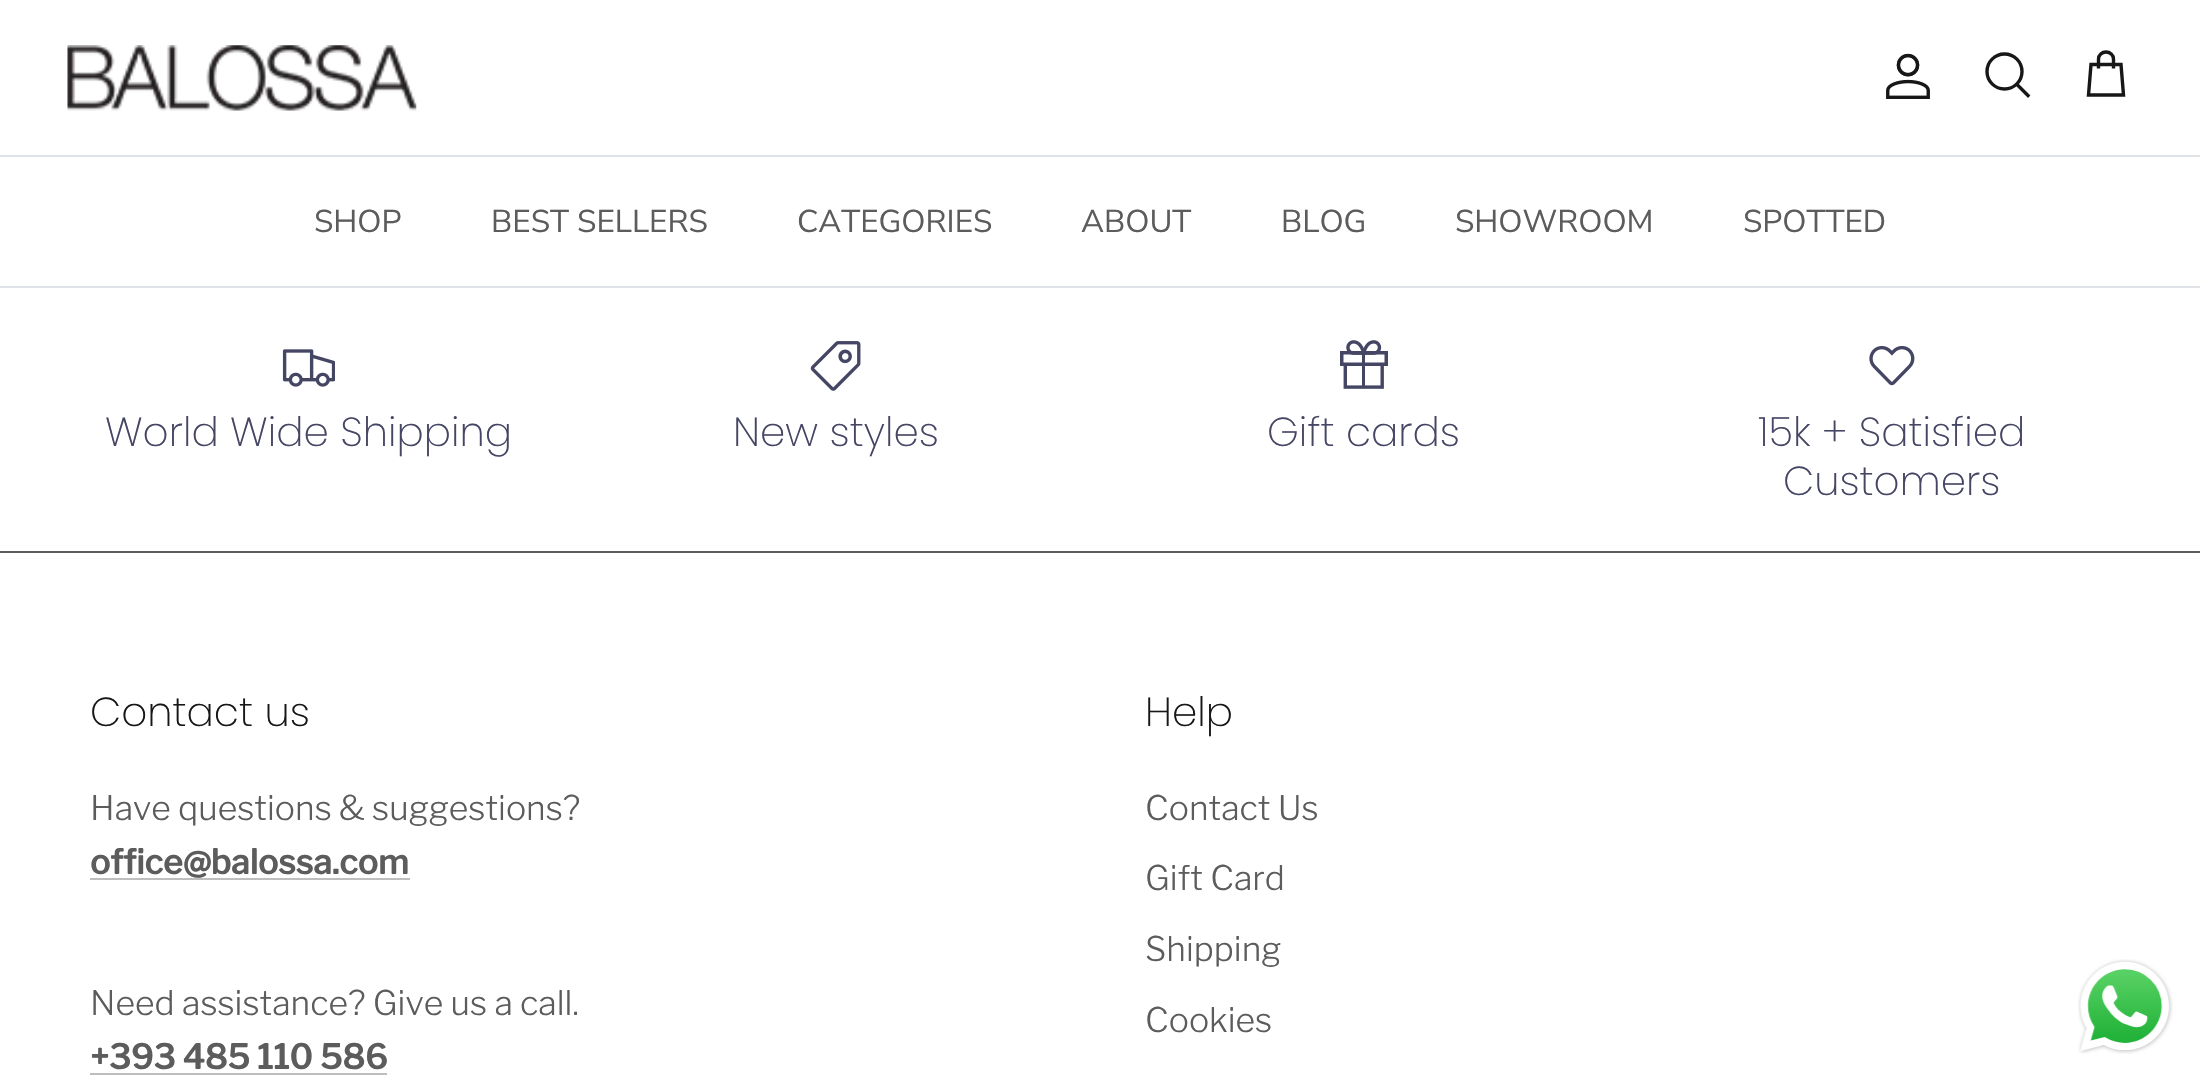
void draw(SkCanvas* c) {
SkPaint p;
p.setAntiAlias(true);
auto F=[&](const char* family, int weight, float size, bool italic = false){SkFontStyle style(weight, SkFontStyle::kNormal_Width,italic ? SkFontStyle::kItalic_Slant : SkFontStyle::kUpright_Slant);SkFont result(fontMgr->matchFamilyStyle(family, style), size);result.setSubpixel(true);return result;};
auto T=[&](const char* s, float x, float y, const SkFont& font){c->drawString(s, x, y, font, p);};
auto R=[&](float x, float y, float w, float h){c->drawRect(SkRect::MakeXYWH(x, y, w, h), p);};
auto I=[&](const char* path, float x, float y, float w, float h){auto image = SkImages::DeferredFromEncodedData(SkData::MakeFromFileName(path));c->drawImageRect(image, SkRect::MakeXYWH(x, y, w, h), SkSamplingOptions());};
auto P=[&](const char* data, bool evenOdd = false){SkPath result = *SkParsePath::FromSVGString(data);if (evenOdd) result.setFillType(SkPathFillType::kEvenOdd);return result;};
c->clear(0xffffffff);
p.setColor(0xffdfe3e8);
R(0,155,2200,2);
I("1.png",67,45,350,66);
I("2.png",1886,53,44,46);
p.setStroke(true);
p.setStrokeWidth(3.4);
p.setColor(0xff171717);
c->drawCircle(2004.5,71.5,17.5,p);
p.setStrokeCap(SkPaint::kSquare_Cap);
c->drawPath(P("M2018 85.5l10 10"),p);
p.setStrokeCap(SkPaint::kButt_Cap);
c->drawPath(P("M2113.5 68.5v-9.5c0-4-3.5-7-7.5-7c-4 0-7.5 3-7.5 7v9.5m-7.5-4h30l2.5 30.5h-35z"),p);
p.setStroke(false);
p.setColor(0xffdfe3e8);
R(0,286,2200,2);
auto f1 = F("Nunito Sans",400,31.5);
p.setColor(0xff5c5c5c);
T("SHOP",314,232,f1);
T("BEST SELLERS",491,232,f1);
T("CATEGORIES",797,232,f1);
T("ABOUT",1081,232,f1);
T("BLOG",1281,232,f1);
T("SHOWROOM",1455,232,f1);
T("SPOTTED",1743,232,f1);
I("3.png",282,349,53,38);
auto f2 = F("Poppins",300,40.5);
p.setColor(0xff454564);
T("World Wide Shipping",105,446,f2);
I("4.png",810,341,51,50);
T("New styles",733,446,f2);
I("5.png",1340,340,48,49);
T("Gift cards",1267,446,f2);
I("6.png",1869,346,46,40);
T("15k + Satisfied",1758,446,f2);
T("Customers",1783,495,f2);
p.setColor(0xff5c5c5c);
R(0,551,2200,2);
p.setColor(0xff171717);
T("Contact us",90,726,f2);
auto f3 = F("Libre Franklin",300,33.75);
p.setColor(0xff5c5c5c);
T("Have questions & suggestions?",90,820,f3);
auto f4 = F("Libre Franklin",700,33.75);
T("office@balossa.com",90,874,f4);
p.setColor(0xffbebebe);
R(90,878,320,2);
p.setColor(0xff5c5c5c);
T("Need assistance? Give us a call.",90,1015,f3);
T("+393 485 110 586",90,1069,f4);
p.setColor(0xffbebebe);
R(90,1073,297,2);
p.setColor(0xff171717);
T("Help",1145,726,f2);
p.setColor(0xff5c5c5c);
T("Contact Us",1145,820,f3);
T("Gift Card",1145,890,f3);
T("Shipping",1145,961,f3);
T("Cookies",1145,1032,f3);
I("7.png",2078,959,95,95);
}
